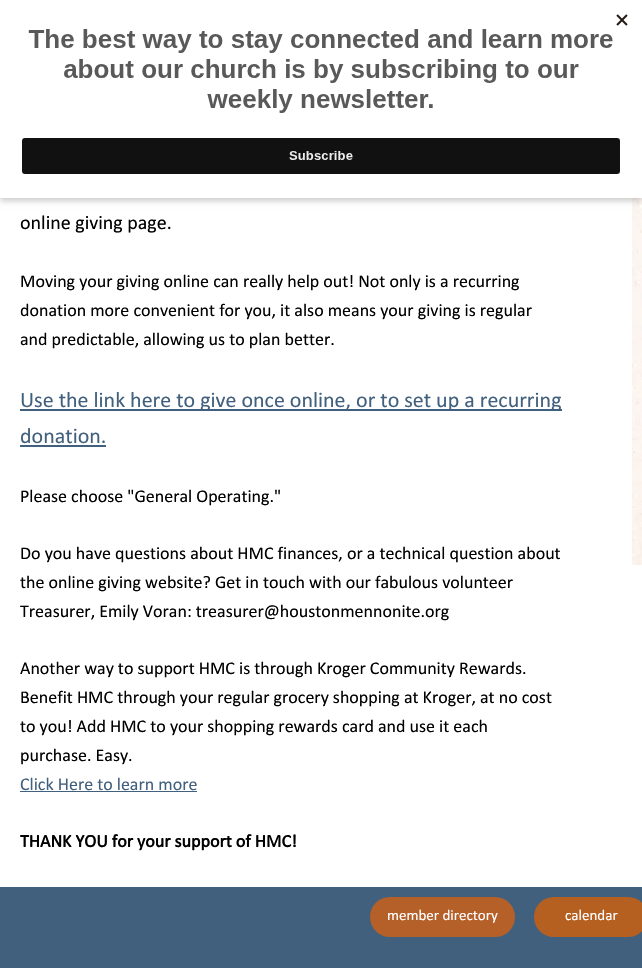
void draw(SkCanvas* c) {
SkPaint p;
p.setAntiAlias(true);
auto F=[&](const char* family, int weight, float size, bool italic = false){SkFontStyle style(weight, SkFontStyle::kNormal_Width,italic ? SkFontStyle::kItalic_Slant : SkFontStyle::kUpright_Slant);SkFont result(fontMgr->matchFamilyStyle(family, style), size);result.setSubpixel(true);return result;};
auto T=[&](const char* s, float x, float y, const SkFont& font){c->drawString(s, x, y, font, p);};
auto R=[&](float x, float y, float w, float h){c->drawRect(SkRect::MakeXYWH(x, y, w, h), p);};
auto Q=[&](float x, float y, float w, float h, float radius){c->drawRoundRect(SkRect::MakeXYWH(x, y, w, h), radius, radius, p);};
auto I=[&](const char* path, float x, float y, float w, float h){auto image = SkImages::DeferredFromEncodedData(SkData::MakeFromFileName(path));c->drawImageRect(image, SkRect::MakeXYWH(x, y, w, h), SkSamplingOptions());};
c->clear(0xffffffff);
I("2.png",632,198,10,367);
p.setColor(0x33000000);
p.setMaskFilter(SkMaskFilter::MakeBlur(kNormal_SkBlurStyle, 3));
c->drawRect(SkRect::MakeXYWH(0,3,642,198),p);
p.setMaskFilter(nullptr);
p.setColor(0xffffffff);
R(0,0,642,198);
I("1.png",22,14,606,160);
auto f1 = F("Calibri",400,20);
p.setColor(0xff000000);
T("online giving page.",20,229,f1);
auto f2 = F("Calibri",400,18);
T("Moving your giving online can really help out! Not only is a recurring",20,287,f2);
T("donation more convenient for you, it also means your giving is regular",20,316,f2);
T("and predictable, allowing us to plan better.",20,345,f2);
p.setColor(0xff41607d);
R(20,409,542,2);
auto f3 = F("Calibri",400,22);
T("Use the link here to give once online, or to set up a recurring",20,407,f3);
T("donation.",20,443,f3);
R(20,445,86,2);
p.setColor(0xff000000);
T("Please choose \"General Operating.\"",20,502,f2);
T("Do you have questions about HMC finances, or a technical question about",20,559,f2);
T("the online giving website? Get in touch with our fabulous volunteer",20,588,f2);
T("Treasurer, Emily Voran: treasurer@houstonmennonite.org",20,617,f2);
T("Another way to support HMC is through Kroger Community Rewards.",20,674,f2);
T("Benefit HMC through your regular grocery shopping at Kroger, at no cost",20,703,f2);
T("to you! Add HMC to your shopping rewards card and use it each",20,732,f2);
T("purchase. Easy.",20,761,f2);
p.setColor(0xff41607d);
T("Click Here to learn more",20,790,f2);
R(20,791,177,1);
auto f4 = F("Calibri",700,18);
p.setColor(0xff000000);
T("THANK YOU for your support of HMC!",20,847,f4);
p.setColor(0xff41607d);
R(0,887,642,81);
p.setColor(0xffb55f29);
Q(370,897,145,40,20);
auto f5 = F("Calibri",400,15);
p.setColor(0xffffffff);
T("member directory",387,920,f5);
p.setColor(0xffb55f21);
Q(534,897,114,40,20);
p.setColor(0xffffffff);
T("calendar",565,920,f5);
}
